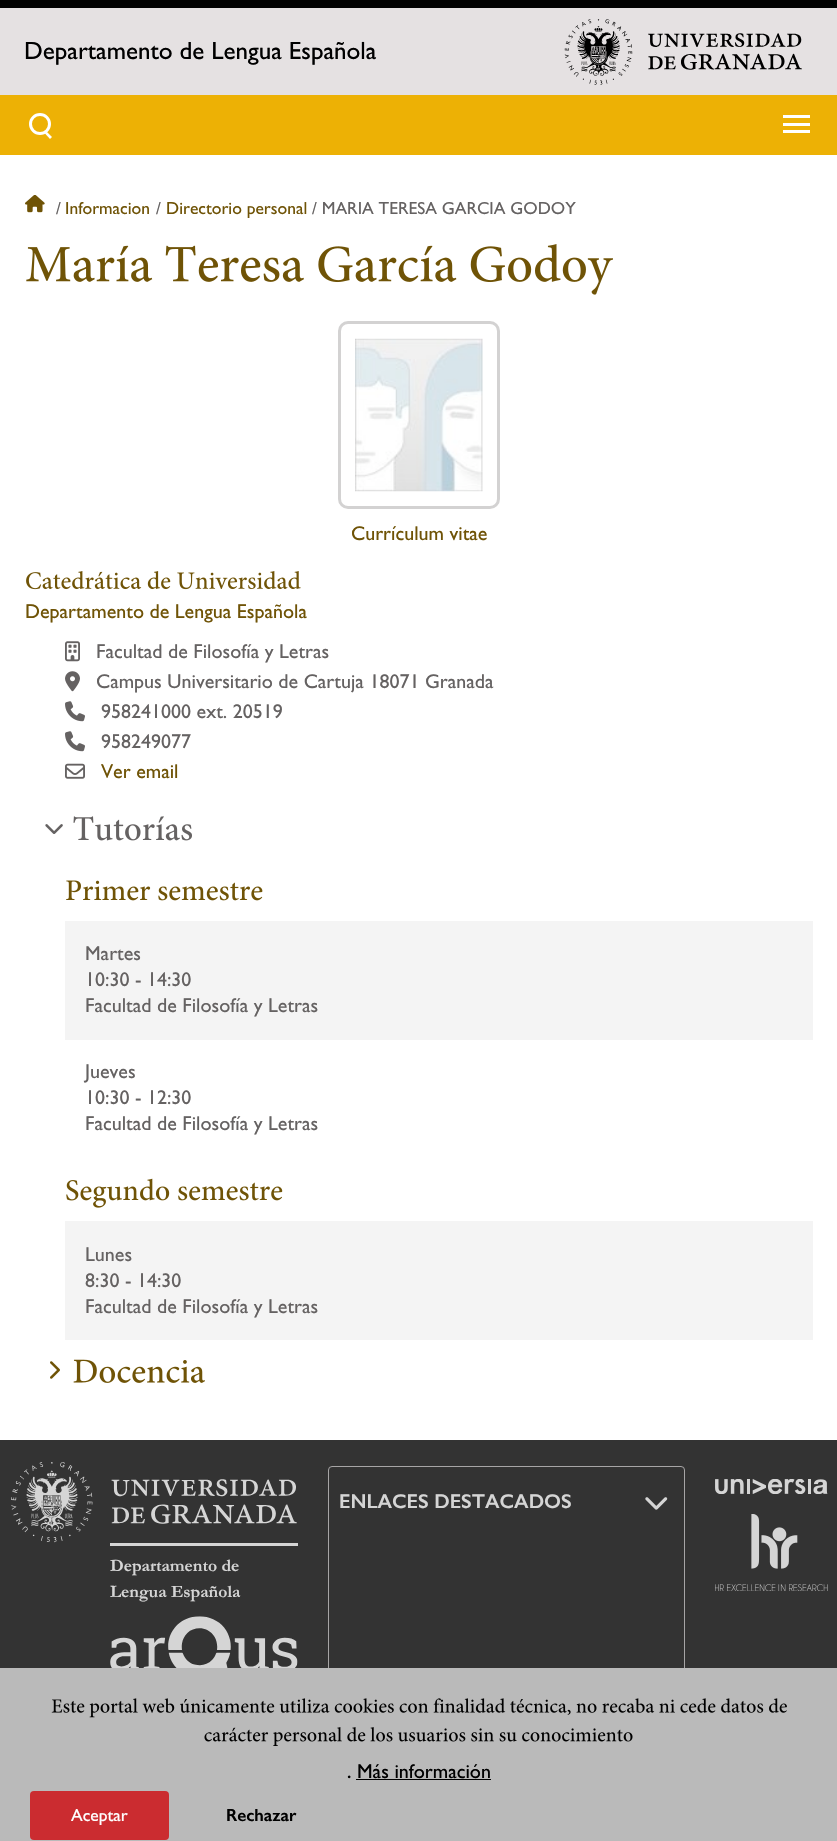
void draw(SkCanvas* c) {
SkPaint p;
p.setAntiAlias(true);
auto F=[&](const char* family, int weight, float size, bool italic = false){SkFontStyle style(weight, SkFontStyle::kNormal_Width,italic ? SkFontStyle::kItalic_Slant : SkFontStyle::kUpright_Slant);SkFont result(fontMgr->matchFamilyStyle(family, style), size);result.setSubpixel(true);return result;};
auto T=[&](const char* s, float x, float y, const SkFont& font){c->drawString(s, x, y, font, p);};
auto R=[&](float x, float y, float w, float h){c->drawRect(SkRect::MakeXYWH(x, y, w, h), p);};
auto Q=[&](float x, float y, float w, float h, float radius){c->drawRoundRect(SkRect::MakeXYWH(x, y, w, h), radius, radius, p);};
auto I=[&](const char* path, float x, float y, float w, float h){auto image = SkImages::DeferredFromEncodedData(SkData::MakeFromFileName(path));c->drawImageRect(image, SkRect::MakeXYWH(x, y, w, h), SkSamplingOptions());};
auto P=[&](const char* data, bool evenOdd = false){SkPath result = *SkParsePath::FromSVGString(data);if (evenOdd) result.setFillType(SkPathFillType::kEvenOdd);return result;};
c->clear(0xffffffff);
p.setColor(0xff010101);
R(0,0,837,8);
p.setColor(0xffedb105);
R(0,95,837,60);
p.setColor(0xffe5e1e2);
R(0,8,837,87);
auto f1 = F("Gill Sans",400,25);
p.setColor(0xff000000);
T("Departamento de Lengua Española",24,59,f1);
I("1.png",564,19,238,66);
p.setStroke(true);
p.setStrokeWidth(3);
p.setColor(0xffffffff);
c->drawCircle(40,124,9.5,p);
p.setStroke(false);
c->drawPath(P("M46 131l6 6l-2 2l-5.5-6z"),p);
R(783,123,27,3);
R(783,115,27,3);
R(783,130,27,3);
I("2.png",25,195,20,18);
auto f2 = F("Gill Sans",400,17.5);
p.setColor(0xff656262);
T("/",56,214,f2);
p.setColor(0xff6f5306);
T("Informacion",65,214,f2);
p.setColor(0xff656262);
T("/",156,214,f2);
p.setColor(0xff6f5306);
T("Directorio personal",166,214,f2);
p.setColor(0xff656262);
T("/ MARIA TERESA GARCIA GODOY",312,214,f2);
I("3.png",26,244,587,51);
p.setStroke(true);
p.setColor(0xffd3d2d2);
c->drawRoundRect(SkRect::MakeXYWH(339.5,322.5,159,185),8.5,8.5,p);
I("4.png",355,338,128,154);
auto f3 = F("Gill Sans",400,20);
p.setStroke(false);
p.setColor(0xff6f5306);
T("Currículum vitae",351,540,f3);
I("5.png",26,571,275,19);
T("Departamento de Lengua Española",25,618,f3);
I("6.png",65,641,15,21);
p.setColor(0xff656262);
T("Facultad de Filosofía y Letras",96,658,f3);
I("7.png",65,671,15,21);
T("Campus Universitario de Cartuja 18071 Granada",96,688,f3);
I("8.png",65,701,20,21);
T("958241000 ext. 20519",101,718,f3);
I("8.png",65,731,20,21);
T("958249077",101,748,f3);
I("9.png",65,763,20,16);
p.setColor(0xff6f5306);
T("Ver email",101,778,f3);
I("10.png",45,824,18,10);
I("11.png",73,816,119,25);
I("12.png",66,880,197,21);
p.setColor(0xfff4f4f4);
R(65,921,748,119);
p.setColor(0xff656262);
T("Martes",85,960,f3);
T("10:30 - 14:30",85,986,f3);
T("Facultad de Filosofía y Letras",85,1012,f3);
T("Jueves",85,1078,f3);
T("10:30 - 12:30",85,1104,f3);
T("Facultad de Filosofía y Letras",85,1130,f3);
I("13.png",66,1178,217,30);
p.setColor(0xfff4f4f4);
R(65,1221,748,119);
p.setColor(0xff656262);
T("Lunes",85,1261,f3);
T("8:30 - 14:30",85,1287,f3);
T("Facultad de Filosofía y Letras",85,1313,f3);
I("14.png",50,1361,10,18);
I("15.png",73,1359,132,24);
p.setColor(0xff333333);
R(0,1440,837,228);
p.setStroke(true);
p.setStrokeWidth(1);
p.setColor(0xffa7a5a6);
c->drawRoundRect(SkRect::MakeXYWH(328.5,1466.5,356,229),3.5,3.5,p);
auto f4 = F("Gill Sans",600,20);
p.setStroke(false);
p.setColor(0xffd5d5d5);
T("ENLACES DESTACADOS",339,1508,f4);
I("16.png",645,1497,23,13);
I("17.png",715,1479,113,15);
I("18.png",715,1514,113,77);
I("19.png",11,1462,286,81);
R(110,1543,188,3);
auto f5 = F("Garamond",700,17.5);
T("Departamento de",110,1571,f5);
T("Lengua Española",110,1597,f5);
I("20.png",110,1616,188,52);
p.setColor(0xffbababa);
R(0,1668,837,173);
I("21.png",51,1698,736,20);
I("22.png",204,1727,429,19);
auto f6 = F("Gill Sans",600,17.5);
p.setColor(0xff000000);
T(".",347,1778,f6);
T("Más información",357,1778,f3);
R(356,1779,135,1);
p.setColor(0xffcb2c30);
Q(30,1791,139,49,4);
p.setColor(0xffffffff);
T("Aceptar",71,1821,f2);
p.setColor(0xff000000);
T("Rechazar",226,1821,f6);
}
